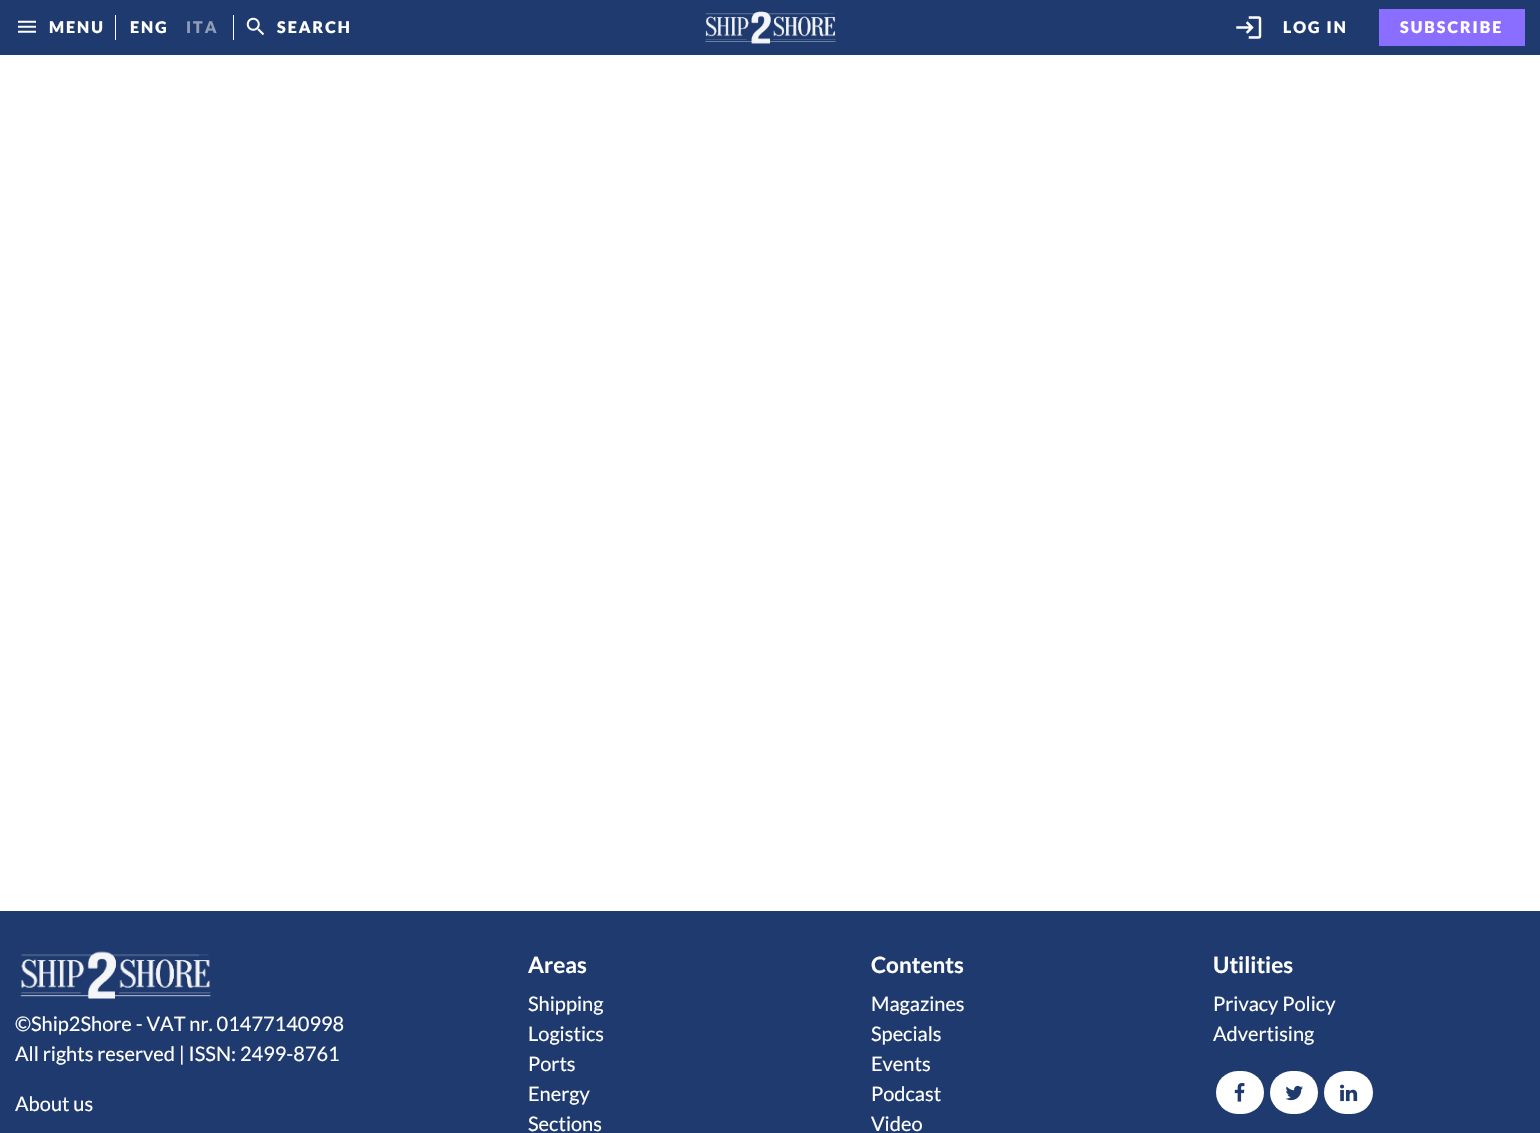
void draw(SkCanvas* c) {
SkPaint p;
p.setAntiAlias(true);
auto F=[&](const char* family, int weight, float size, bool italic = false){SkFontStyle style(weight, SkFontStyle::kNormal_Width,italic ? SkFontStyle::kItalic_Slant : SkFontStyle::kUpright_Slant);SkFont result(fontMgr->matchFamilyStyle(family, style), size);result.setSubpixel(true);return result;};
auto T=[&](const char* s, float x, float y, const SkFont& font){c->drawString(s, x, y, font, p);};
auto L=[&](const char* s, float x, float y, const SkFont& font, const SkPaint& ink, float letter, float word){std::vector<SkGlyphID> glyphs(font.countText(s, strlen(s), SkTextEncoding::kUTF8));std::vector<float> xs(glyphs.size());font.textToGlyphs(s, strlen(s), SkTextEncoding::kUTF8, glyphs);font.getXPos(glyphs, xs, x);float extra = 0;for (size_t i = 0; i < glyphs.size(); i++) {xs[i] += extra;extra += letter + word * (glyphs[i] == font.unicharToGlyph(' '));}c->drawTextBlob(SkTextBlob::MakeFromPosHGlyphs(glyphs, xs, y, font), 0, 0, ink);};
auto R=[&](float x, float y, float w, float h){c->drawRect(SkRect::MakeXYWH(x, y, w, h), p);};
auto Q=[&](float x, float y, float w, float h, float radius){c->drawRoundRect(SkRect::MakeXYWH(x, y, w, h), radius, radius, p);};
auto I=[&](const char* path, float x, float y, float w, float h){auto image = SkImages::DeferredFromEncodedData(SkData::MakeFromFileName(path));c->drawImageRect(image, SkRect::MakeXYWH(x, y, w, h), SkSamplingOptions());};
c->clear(0xffffffff);
p.setColor(0xff1f3a6e);
R(0,0,1540,55);
p.setColor(0xffffffff);
R(115,15,1,25);
I("1.png",18,20,18,13);
auto f1 = F("Lato",900,16);
L("MENU",49,33,f1,p,2,0);
R(233,15,1,25);
L("ENG",130,33,f1,p,2,0);
p.setColor(0xff8f9db7);
L("ITA",186,33,f1,p,2,0);
I("2.png",246,17,19,19);
p.setColor(0xffffffff);
L("SEARCH",277,33,f1,p,2,0);
I("3.png",705,11,131,33);
I("4.png",1236,16,26,23);
L("LOG IN",1283,33,f1,p,2,0);
p.setColor(0xff8a6eff);
R(1379,9,146,37);
p.setColor(0xffffffff);
L("SUBSCRIBE",1400,33,f1,p,2,0);
p.setColor(0xff1f3a6e);
R(0,911,1540,222);
auto f2 = F("Lato",700,22.5);
p.setColor(0xffffffff);
T("Areas",528,973,f2);
auto f3 = F("Lato",400,20);
T("Shipping",528,1011,f3);
T("Logistics",528,1041,f3);
T("Ports",528,1071,f3);
T("Energy",528,1101,f3);
T("Sections",528,1131,f3);
T("Contents",871,973,f2);
T("Magazines",871,1011,f3);
T("Specials",871,1041,f3);
T("Events",871,1071,f3);
T("Podcast",871,1101,f3);
T("Video",871,1131,f3);
T("Utilities",1213,973,f2);
T("Privacy Policy",1213,1011,f3);
T("Advertising",1213,1041,f3);
Q(1216,1071,48,43,21.5);
I("5.png",1234,1083,11,19);
Q(1270,1071,48,43,21.5);
I("6.png",1285,1085,18,16);
Q(1324,1071,49,43,21.5);
I("7.png",1340,1084,18,18);
I("8.png",20,951,191,48);
T("©Ship2Shore - VAT nr. 01477140998",15,1031,f3);
T("All rights reserved | ISSN: 2499-8761",15,1061,f3);
T("About us",15,1111,f3);
}
